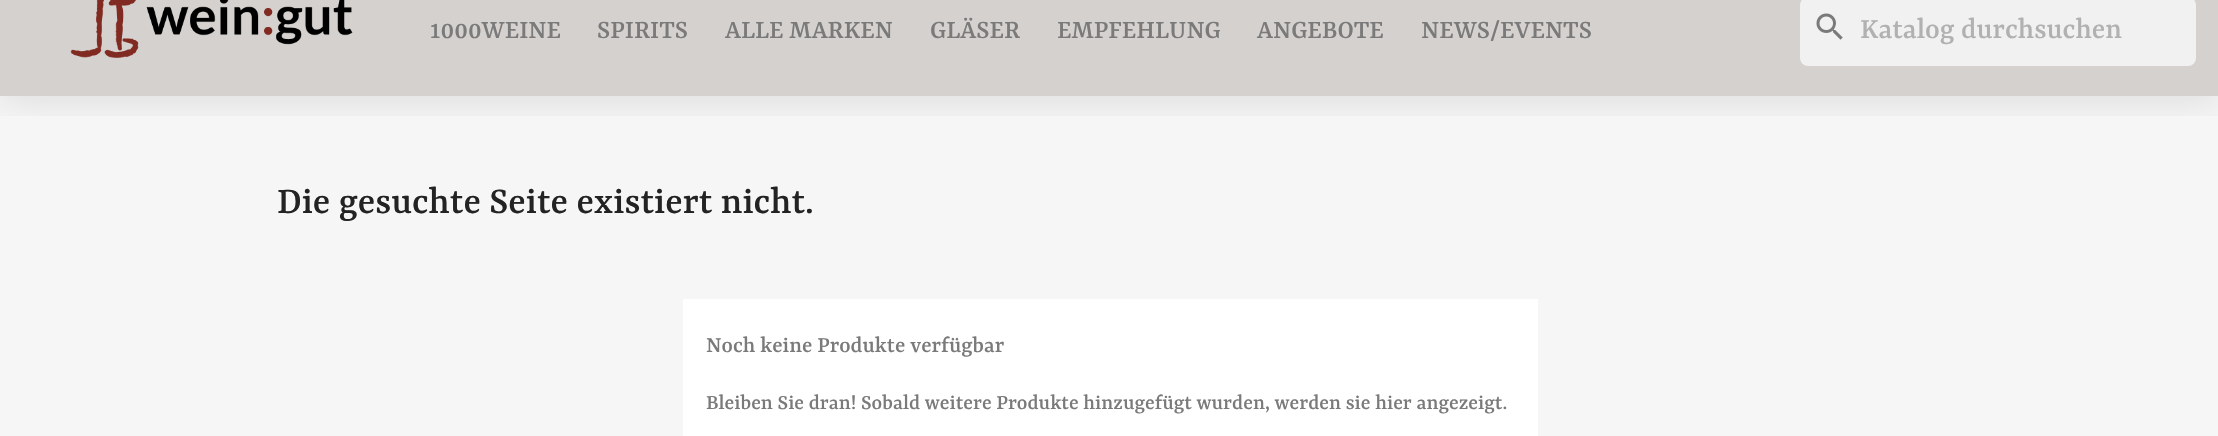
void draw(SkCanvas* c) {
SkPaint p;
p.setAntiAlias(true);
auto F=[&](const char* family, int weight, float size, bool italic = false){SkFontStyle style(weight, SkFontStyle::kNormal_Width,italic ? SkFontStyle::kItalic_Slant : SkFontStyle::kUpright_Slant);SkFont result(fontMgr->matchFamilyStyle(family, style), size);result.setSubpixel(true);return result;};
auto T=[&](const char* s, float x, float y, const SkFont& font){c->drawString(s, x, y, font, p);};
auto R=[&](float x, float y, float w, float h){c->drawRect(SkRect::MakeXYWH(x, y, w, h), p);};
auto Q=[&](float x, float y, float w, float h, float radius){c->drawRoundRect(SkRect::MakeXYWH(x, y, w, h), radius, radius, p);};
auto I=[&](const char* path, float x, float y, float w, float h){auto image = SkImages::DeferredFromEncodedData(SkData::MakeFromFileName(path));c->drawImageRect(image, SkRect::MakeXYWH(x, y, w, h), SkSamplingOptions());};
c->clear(0xffd5d1cf);
p.setColor(0xfff6f6f6);
R(0,96,2218,340);
c->save();
c->clipRect(SkRect::MakeXYWH(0,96,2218,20));
p.setColor(0x1c000000);
p.setMaskFilter(SkMaskFilter::MakeBlur(kNormal_SkBlurStyle, 19));
c->drawRect(SkRect::MakeXYWH(0,-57,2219,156),p);
p.setMaskFilter(nullptr);
c->restore();
I("1.png",70,0,283,58);
auto f1 = F("Rasa",500,28);
p.setColor(0xff7a7a7a);
T("1000WEINE",430,38,f1);
T("SPIRITS",597,38,f1);
T("ALLE MARKEN",725,38,f1);
T("GLÄSER",930,38,f1);
T("EMPFEHLUNG",1057,38,f1);
T("ANGEBOTE",1257,38,f1);
T("NEWS/EVENTS",1421,38,f1);
p.setColor(0xfff1f1f1);
Q(1800,-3,396,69,8);
I("2.png",1816,13,27,27);
auto f2 = F("Rasa",500,31.25);
p.setColor(0xffb1b1b1);
T("Katalog durchsuchen",1860,38,f2);
auto f3 = F("Rasa",500,40.5);
p.setColor(0xff232323);
T("Die gesuchte Seite existiert nicht.",277,213,f3);
p.setColor(0xffffffff);
R(683,299,855,137);
auto f4 = F("Rasa",500,24);
p.setColor(0xff7a7a7a);
T("Noch keine Produkte verfügbar",706,352,f4);
auto f5 = F("Rasa",500,22.5);
T("Bleiben Sie dran! Sobald weitere Produkte hinzugefügt wurden, werden sie hier angezeigt.",706,409,f5);
}
